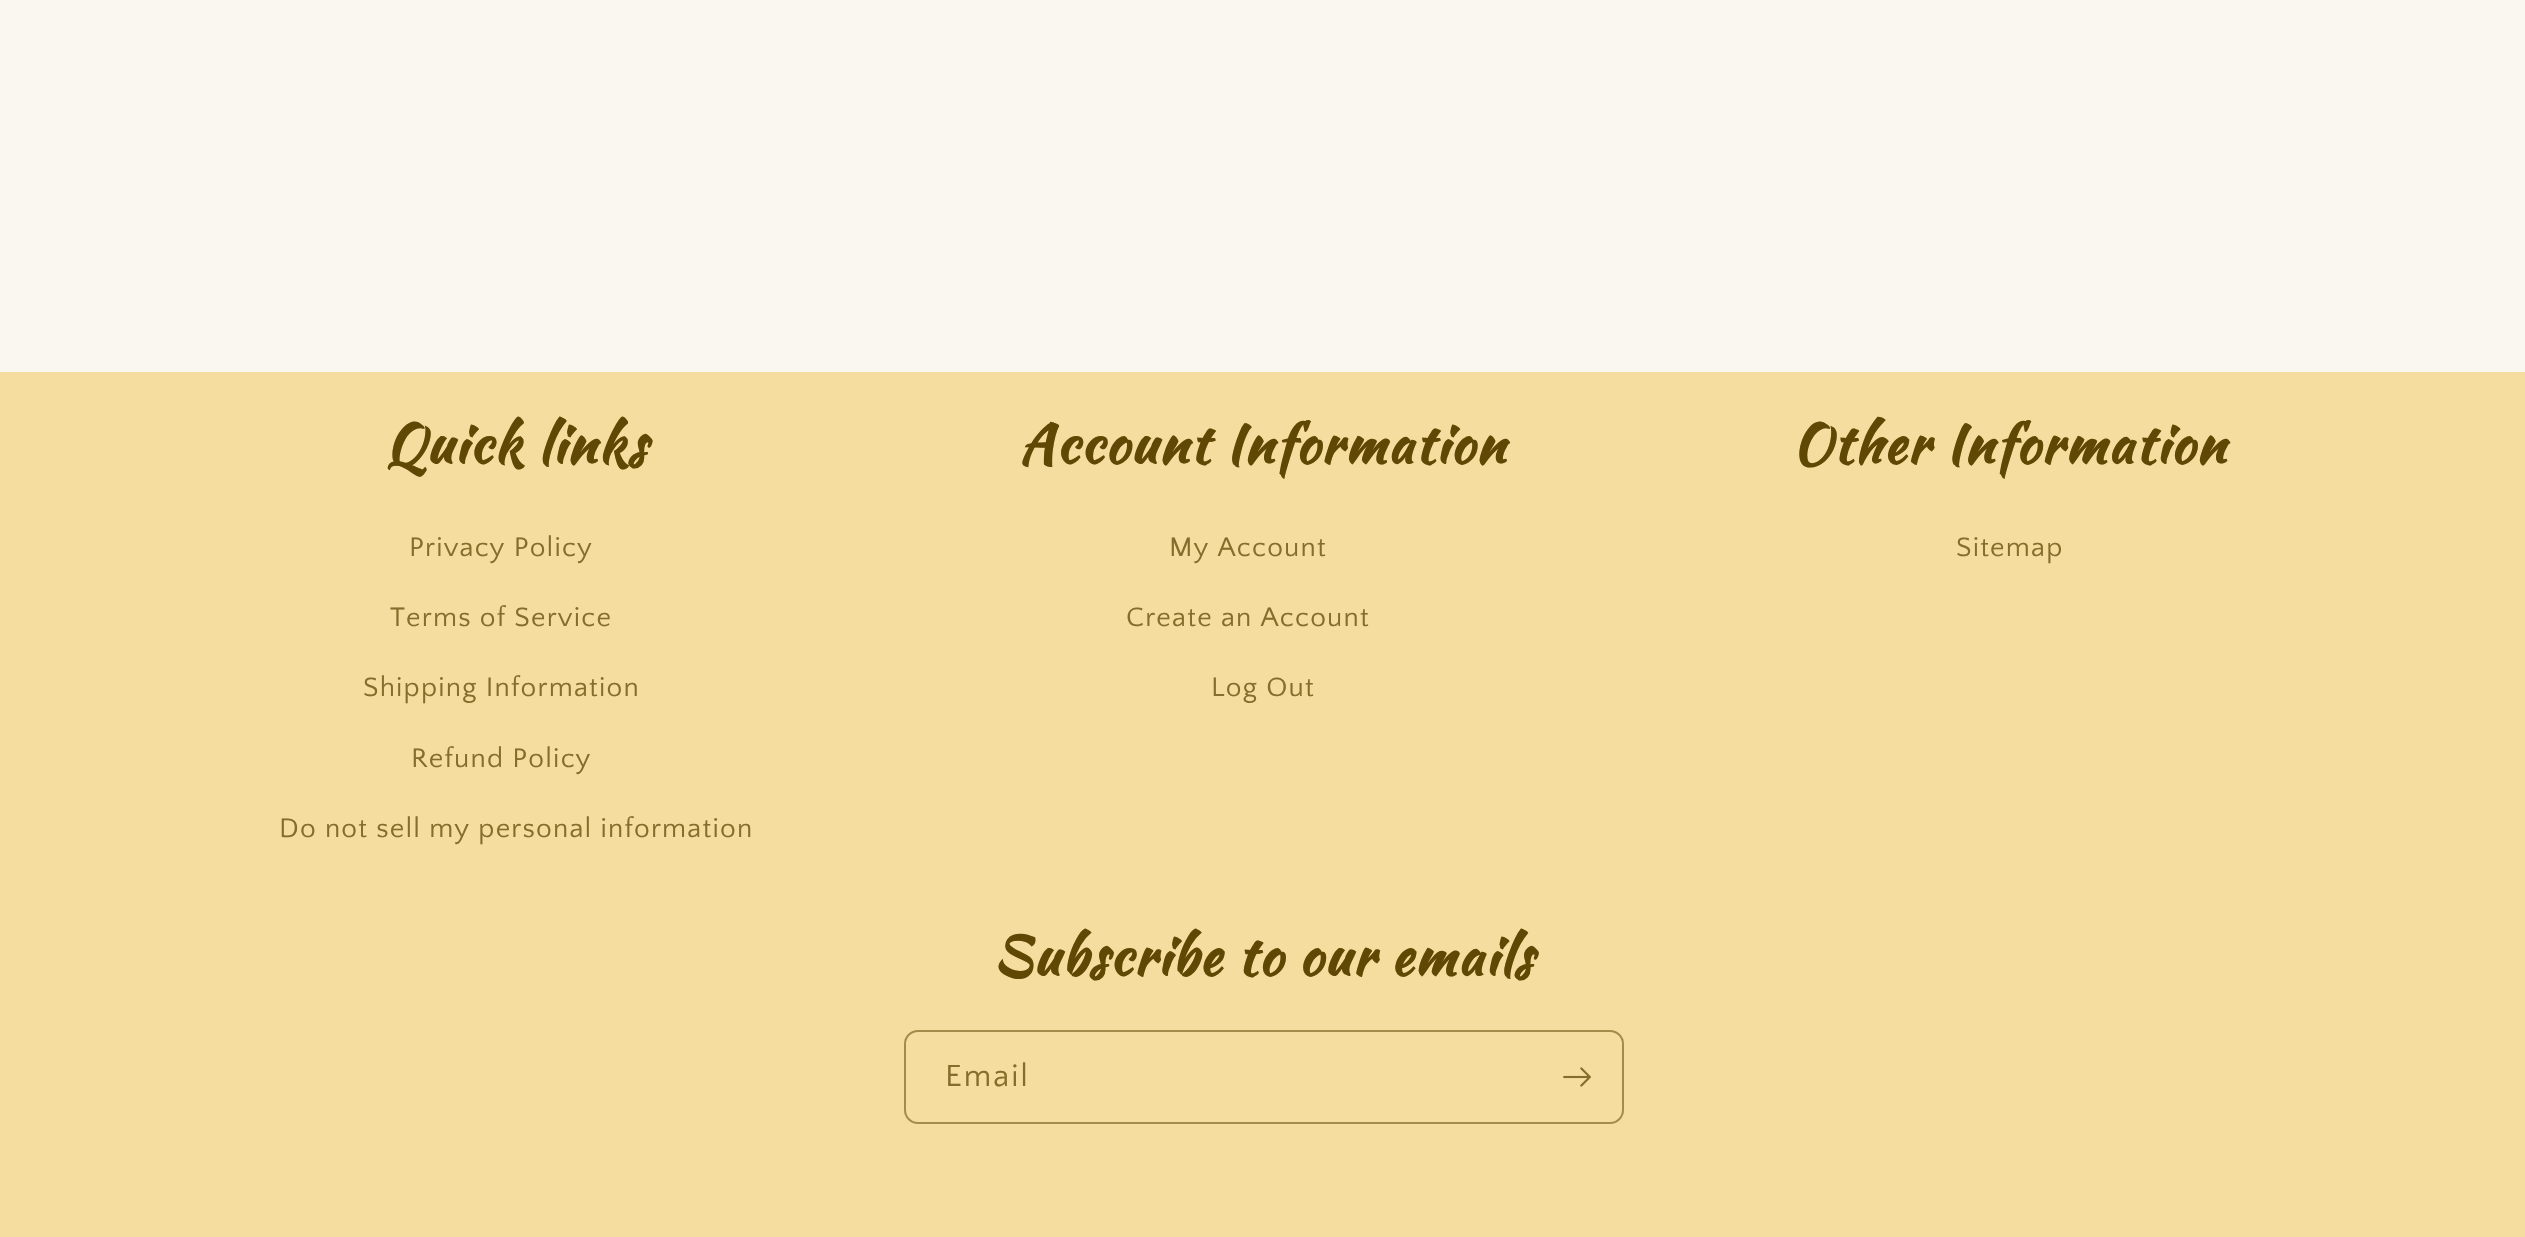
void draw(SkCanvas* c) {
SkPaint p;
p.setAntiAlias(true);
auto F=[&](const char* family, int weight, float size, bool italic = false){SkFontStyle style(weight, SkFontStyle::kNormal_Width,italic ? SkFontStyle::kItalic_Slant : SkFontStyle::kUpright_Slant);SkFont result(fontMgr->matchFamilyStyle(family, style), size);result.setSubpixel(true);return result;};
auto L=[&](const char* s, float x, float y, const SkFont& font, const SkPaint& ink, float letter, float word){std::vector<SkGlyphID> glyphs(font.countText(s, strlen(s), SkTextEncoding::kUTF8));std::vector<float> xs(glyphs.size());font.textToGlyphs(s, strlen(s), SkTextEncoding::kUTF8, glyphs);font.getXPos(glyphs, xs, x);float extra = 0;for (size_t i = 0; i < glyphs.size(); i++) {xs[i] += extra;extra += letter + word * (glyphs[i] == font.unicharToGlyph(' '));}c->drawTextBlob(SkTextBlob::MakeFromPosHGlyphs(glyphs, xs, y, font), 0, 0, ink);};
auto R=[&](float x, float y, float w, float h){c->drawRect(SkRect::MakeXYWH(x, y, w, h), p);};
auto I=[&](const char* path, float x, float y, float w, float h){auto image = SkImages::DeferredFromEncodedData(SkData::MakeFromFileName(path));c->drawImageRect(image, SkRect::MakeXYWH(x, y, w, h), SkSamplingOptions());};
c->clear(0xfffaf7f0);
p.setColor(0xfff5dda0);
R(0,372,2525,865);
auto f1 = F("Kaushan Script",700,54);
p.setColor(0xff614704);
L("Quick links",385,463,f1,p,1.8,0);
auto f2 = F("Quattrocento Sans",400,28);
p.setColor(0xff866d2b);
L("Privacy Policy",409,556,f2,p,1.2,0);
L("Terms of Service",390,626,f2,p,1.2,0);
L("Shipping Information",363,696,f2,p,1.2,0);
L("Refund Policy",411,767,f2,p,1.2,0);
L("Do not sell my personal information",279,837,f2,p,1.2,0);
p.setColor(0xff614704);
L("Account Information",1019,463,f1,p,1.8,0);
p.setColor(0xff866d2b);
L("My Account",1169,556,f2,p,1.2,0);
L("Create an Account",1126,626,f2,p,1.2,0);
L("Log Out",1211,696,f2,p,1.2,0);
p.setColor(0xff614704);
L("Other Information",1792,463,f1,p,1.8,0);
p.setColor(0xff866d2b);
L("Sitemap",1956,556,f2,p,1.2,0);
p.setColor(0xff614704);
L("Subscribe to our emails",993,975,f1,p,1.8,0);
p.setStroke(true);
p.setStrokeWidth(2);
p.setColor(0xffa48b4a);
c->drawRoundRect(SkRect::MakeXYWH(905,1031,718,92),13,13,p);
auto f3 = F("Quattrocento Sans",400,32);
p.setStroke(false);
p.setColor(0xff866d2b);
L("Email",945,1086,f3,p,2,0);
I("1.png",1563,1067,28,20);
}
